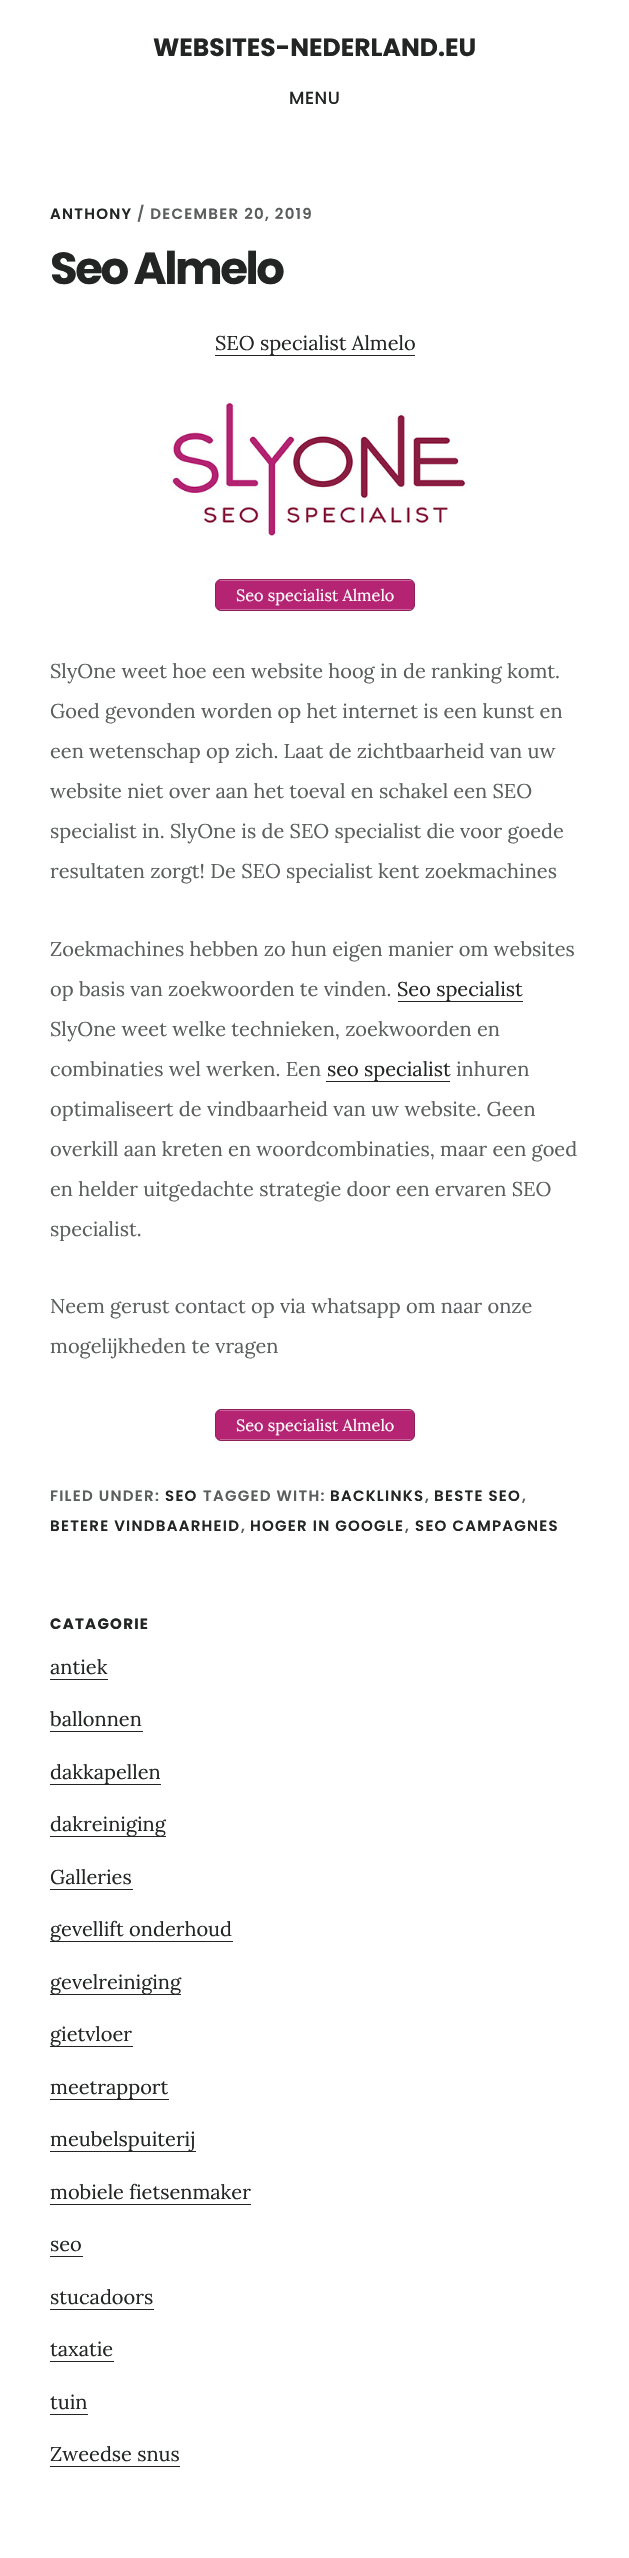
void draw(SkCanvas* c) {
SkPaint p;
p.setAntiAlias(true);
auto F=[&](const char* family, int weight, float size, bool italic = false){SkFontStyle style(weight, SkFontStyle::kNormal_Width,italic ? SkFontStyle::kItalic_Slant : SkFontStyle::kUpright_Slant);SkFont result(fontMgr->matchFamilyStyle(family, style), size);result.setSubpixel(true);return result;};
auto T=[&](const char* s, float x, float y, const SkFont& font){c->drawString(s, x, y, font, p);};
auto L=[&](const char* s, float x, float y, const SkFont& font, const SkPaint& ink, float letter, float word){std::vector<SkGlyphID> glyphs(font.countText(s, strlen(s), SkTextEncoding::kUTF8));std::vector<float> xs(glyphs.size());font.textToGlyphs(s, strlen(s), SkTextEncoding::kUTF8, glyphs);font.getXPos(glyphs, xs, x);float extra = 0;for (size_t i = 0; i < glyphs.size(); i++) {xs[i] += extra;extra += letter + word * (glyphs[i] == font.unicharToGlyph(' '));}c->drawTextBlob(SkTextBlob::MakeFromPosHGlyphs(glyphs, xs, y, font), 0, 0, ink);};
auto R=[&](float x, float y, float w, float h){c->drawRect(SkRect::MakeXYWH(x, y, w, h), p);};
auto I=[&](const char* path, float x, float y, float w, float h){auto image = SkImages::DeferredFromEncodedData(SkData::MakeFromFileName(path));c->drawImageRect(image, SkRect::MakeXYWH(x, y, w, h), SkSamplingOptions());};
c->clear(0xffffffff);
auto f1 = F("Poppins",700,25);
p.setColor(0xff232525);
T("WEBSITES-NEDERLAND.EU",153,56,f1);
auto f2 = F("Poppins",500,17.5);
L("MENU",289,104,f2,p,.5,0);
auto f3 = F("Poppins",600,15);
L("ANTHONY",50,219,f3,p,1.25,0);
p.setColor(0xff5b5e5e);
L("/ DECEMBER 20, 2019",137,219,f3,p,1.25,0);
auto f4 = F("Poppins",700,45);
p.setColor(0xff232525);
L("Seo Almelo",50,284,f4,p,-2.5,0);
R(215,355,200,1);
auto f5 = F("Lora",400,20);
T("SEO specialist Almelo",215,350,f5);
I("1.png",171,400,296,136);
p.setColor(0xffb42473);
c->drawRoundRect(SkRect::MakeXYWH(215.5,579.5,199,31),5.5,5.5,p);
p.setStroke(true);
p.setStrokeWidth(1);
p.setColor(0xff901d5c);
c->drawRoundRect(SkRect::MakeXYWH(215.5,579.5,199,31),5.5,5.5,p);
p.setStroke(false);
p.setColor(0xffcb669d);
R(220,580,191,1);
R(220,609,191,1);
auto f6 = F("Lora",400,16.25);
p.setColor(0xffffffff);
T("Seo specialist Almelo",236,601,f6);
p.setColor(0xff5b5e5e);
T("SlyOne weet hoe een website hoog in de ranking komt.",50,678,f5);
T("Goed gevonden worden op het internet is een kunst en",50,718,f5);
T("een wetenschap op zich. Laat de zichtbaarheid van uw",50,758,f5);
T("website niet over aan het toeval en schakel een SEO",50,798,f5);
T("specialist in. SlyOne is de SEO specialist die voor goede",50,838,f5);
T("resultaten zorgt! De SEO specialist kent zoekmachines",50,878,f5);
T("Zoekmachines hebben zo hun eigen manier om websites",50,956,f5);
T("op basis van zoekwoorden te vinden.",50,996,f5);
p.setColor(0xff232525);
R(398,1001,125,1);
T("Seo specialist",397,996,f5);
p.setColor(0xff5b5e5e);
T("SlyOne weet welke technieken, zoekwoorden en",50,1036,f5);
T("combinaties wel werken. Een",50,1076,f5);
p.setColor(0xff232525);
R(326,1081,124,1);
T("seo specialist",327,1076,f5);
p.setColor(0xff5b5e5e);
T("inhuren",456,1076,f5);
T("optimaliseert de vindbaarheid van uw website. Geen",50,1116,f5);
T("overkill aan kreten en woordcombinaties, maar een goed",50,1156,f5);
T("en helder uitgedachte strategie door een ervaren SEO",50,1196,f5);
T("specialist.",50,1236,f5);
T("Neem gerust contact op via whatsapp om naar onze",50,1313,f5);
T("mogelijkheden te vragen",50,1353,f5);
p.setColor(0xffb42473);
c->drawRoundRect(SkRect::MakeXYWH(215.5,1409.5,199,31),5.5,5.5,p);
p.setStroke(true);
p.setColor(0xff901d5c);
c->drawRoundRect(SkRect::MakeXYWH(215.5,1409.5,199,31),5.5,5.5,p);
p.setStroke(false);
p.setColor(0xffcb669d);
R(220,1410,191,1);
R(220,1439,191,1);
p.setColor(0xffffffff);
T("Seo specialist Almelo",236,1431,f6);
p.setColor(0xff5b5e5e);
L("FILED UNDER:",50,1501,f3,p,1.25,0);
p.setColor(0xff232525);
L("SEO",165,1501,f3,p,1.25,0);
p.setColor(0xff5b5e5e);
L("TAGGED WITH:",203,1501,f3,p,1.25,0);
p.setColor(0xff232525);
L("BACKLINKS",330,1501,f3,p,1.25,0);
p.setColor(0xff5b5e5e);
L(",",425,1501,f3,p,1.25,0);
p.setColor(0xff232525);
L("BESTE SEO",434,1501,f3,p,1.25,0);
p.setColor(0xff5b5e5e);
L(",",522,1501,f3,p,1.25,0);
p.setColor(0xff232525);
L("BETERE VINDBAARHEID",50,1531,f3,p,1.25,0);
p.setColor(0xff5b5e5e);
L(",",241,1531,f3,p,1.25,0);
p.setColor(0xff232525);
L("HOGER IN GOOGLE",250,1531,f3,p,1.25,0);
p.setColor(0xff5b5e5e);
L(",",405,1531,f3,p,1.25,0);
p.setColor(0xff232525);
L("SEO CAMPAGNES",415,1531,f3,p,1.25,0);
auto f7 = F("Poppins",700,15);
L("CATAGORIE",50,1629,f7,p,1.25,0);
T("antiek",50,1674,f5);
R(50,1679,58,1);
T("ballonnen",50,1726,f5);
R(50,1731,93,1);
R(50,1784,111,1);
T("dakkapellen",50,1779,f5);
R(50,1836,116,1);
T("dakreiniging",50,1831,f5);
T("Galleries",50,1884,f5);
R(50,1889,83,1);
R(50,1941,183,1);
T("gevellift onderhoud",50,1936,f5);
R(50,1994,131,1);
T("gevelreiniging",50,1989,f5);
R(50,2046,83,1);
T("gietvloer",50,2041,f5);
R(50,2099,119,1);
T("meetrapport",50,2094,f5);
R(50,2151,146,1);
T("meubelspuiterij",50,2146,f5);
T("mobiele fietsenmaker",50,2199,f5);
R(50,2204,201,1);
T("seo",50,2251,f5);
R(50,2256,33,1);
T("stucadoors",50,2304,f5);
R(50,2309,104,1);
T("taxatie",50,2356,f5);
R(50,2361,64,1);
T("tuin",50,2409,f5);
R(50,2414,38,1);
T("Zweedse snus",50,2461,f5);
R(50,2466,130,1);
}
